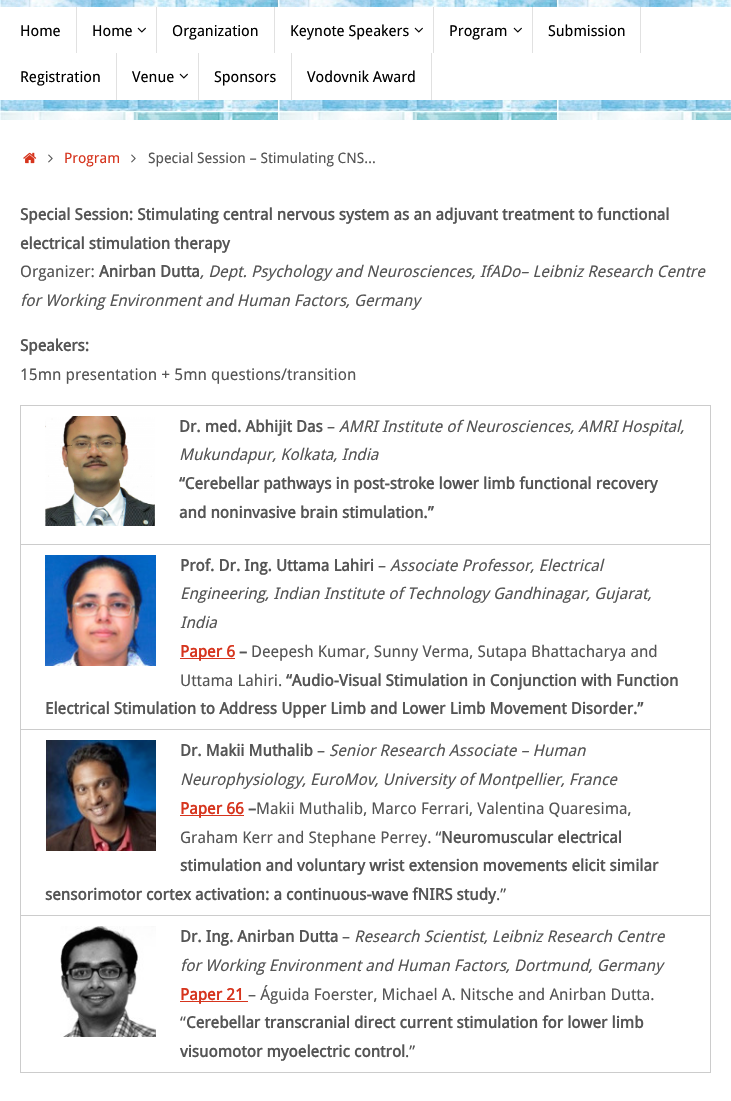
void draw(SkCanvas* c) {
SkPaint p;
p.setAntiAlias(true);
auto F=[&](const char* family, int weight, float size, bool italic = false){SkFontStyle style(weight, SkFontStyle::kNormal_Width,italic ? SkFontStyle::kItalic_Slant : SkFontStyle::kUpright_Slant);SkFont result(fontMgr->matchFamilyStyle(family, style), size);result.setSubpixel(true);return result;};
auto T=[&](const char* s, float x, float y, const SkFont& font){c->drawString(s, x, y, font, p);};
auto R=[&](float x, float y, float w, float h){c->drawRect(SkRect::MakeXYWH(x, y, w, h), p);};
auto I=[&](const char* path, float x, float y, float w, float h){auto image = SkImages::DeferredFromEncodedData(SkData::MakeFromFileName(path));c->drawImageRect(image, SkRect::MakeXYWH(x, y, w, h), SkSamplingOptions());};
c->clear(0xffffffff);
I("1.png",0,0,731,120);
p.setColor(0xffffffff);
R(0,7,731,93);
p.setColor(0xffe1e1e1);
R(76,7,1,46);
auto f1 = F("Droid Sans",400,15);
p.setColor(0xff000000);
T("Home",20,36,f1);
p.setColor(0xffe1e1e1);
R(156,7,1,46);
p.setColor(0xff000000);
T("Home",92,36,f1);
I("2.png",137,27,9,6);
p.setColor(0xffe1e1e1);
R(274,7,1,46);
p.setColor(0xff000000);
T("Organization",172,36,f1);
p.setColor(0xffe1e1e1);
R(433,7,1,46);
p.setColor(0xff000000);
T("Keynote Speakers",290,36,f1);
I("2.png",414,27,9,6);
p.setColor(0xffe1e1e1);
R(532,7,1,46);
p.setColor(0xff000000);
T("Program",449,36,f1);
I("2.png",513,27,9,6);
p.setColor(0xffe1e1e1);
R(640,7,1,46);
p.setColor(0xff000000);
T("Submission",548,36,f1);
p.setColor(0xffe1e1e1);
R(116,53,1,47);
p.setColor(0xff000000);
T("Registration",20,82,f1);
p.setColor(0xffe1e1e1);
R(198,53,1,47);
p.setColor(0xff000000);
T("Venue",132,82,f1);
I("2.png",179,73,9,6);
p.setColor(0xffe1e1e1);
R(291,53,1,47);
p.setColor(0xff000000);
T("Sponsors",214,82,f1);
p.setColor(0xffe1e1e1);
R(431,53,1,47);
p.setColor(0xff000000);
T("Vodovnik Award",307,82,f1);
I("3.png",23,152,14,12);
I("4.png",48,154,5,9);
auto f2 = F("Droid Sans",400,14.4);
p.setColor(0xffd6341d);
T("Program",64,163,f2);
I("4.png",131,154,5,9);
p.setColor(0xff555555);
T("Special Session – Stimulating CNS…",148,163,f2);
auto f3 = F("Droid Sans",700,16);
T("Special Session: Stimulating central nervous system as an adjuvant treatment to functional",20,220,f3);
T("electrical stimulation therapy",20,249,f3);
auto f4 = F("Droid Sans",400,16);
T("Organizer:",20,277,f4);
T("Anirban Dutta",99,277,f3);
auto f5 = F("Droid Sans",400,16,true);
T(", Dept. Psychology and Neurosciences, IfADo– Leibniz Research Centre",200,277,f5);
T("for Working Environment and Human Factors, Germany",20,306,f5);
T("Speakers:",20,351,f3);
T("15mn presentation + 5mn questions/transition",20,380,f4);
p.setColor(0xffcccccc);
R(20,405,691,1);
R(710,405,1,668);
R(20,1072,691,1);
R(20,405,1,668);
I("5.png",45,416,110,110);
p.setColor(0xff555555);
T("Dr. med. Abhijit Das",179,432,f3);
T("–",327,432,f4);
T("AMRI Institute of Neurosciences, AMRI Hospital,",339,432,f5);
T("Mukundapur, Kolkata, India",179,460,f5);
T("“Cerebellar pathways in post-stroke lower limb functional recovery",179,489,f3);
T("and noninvasive brain stimulation.”",179,518,f3);
p.setColor(0xffcccccc);
R(20,544,691,1);
I("6.png",45,555,111,111);
p.setColor(0xff555555);
T("Prof. Dr. Ing. Uttama Lahiri",180,571,f3);
T("–",378,571,f4);
T("Associate Professor, Electrical",390,571,f5);
T("Engineering, Indian Institute of Technology Gandhinagar, Gujarat,",180,599,f5);
T("India",180,628,f5);
p.setColor(0xffd6341d);
R(180,658,55,1);
T("Paper 6",180,657,f3);
p.setColor(0xff555555);
T("–",239,657,f3);
T("Deepesh Kumar, Sunny Verma, Sutapa Bhattacharya and",251,657,f4);
T("Uttama Lahiri.",180,686,f4);
T("“Audio-Visual Stimulation in Conjunction with Function",286,686,f3);
T("Electrical Stimulation to Address Upper Limb and Lower Limb Movement Disorder.”",45,714,f3);
p.setColor(0xffcccccc);
R(20,729,691,1);
I("7.png",45,740,111,111);
p.setColor(0xff555555);
T("Dr. Makii Muthalib",180,756,f3);
T("–",317,756,f4);
T("Senior Research Associate – Human",329,756,f5);
T("Neurophysiology, EuroMov, University of Montpellier, France",180,785,f5);
p.setColor(0xffd6341d);
R(180,815,64,1);
T("Paper 66",180,814,f3);
p.setColor(0xff555555);
T("–",248,814,f3);
T("Makii Muthalib, Marco Ferrari, Valentina Quaresima,",256,814,f4);
T("Graham Kerr and Stephane Perrey. “",180,843,f4);
T("Neuromuscular electrical",441,843,f3);
T("stimulation and voluntary wrist extension movements elicit similar",180,871,f3);
T("sensorimotor cortex activation: a continuous-wave fNIRS study",45,900,f3);
T(".”",496,900,f4);
p.setColor(0xffcccccc);
R(20,915,691,1);
I("8.png",60,926,96,111);
p.setColor(0xff555555);
T("Dr. Ing. Anirban Dutta",180,942,f3);
T("–",342,942,f4);
T("Research Scientist, Leibniz Research Centre",354,942,f5);
T("for Working Environment and Human Factors, Dortmund, Germany",180,971,f5);
p.setColor(0xffd6341d);
R(180,1001,68,1);
T("Paper 21",180,1000,f3);
p.setColor(0xff555555);
T("– Águida Foerster, Michael A. Nitsche and Anirban Dutta.",248,1000,f4);
T("“",180,1028,f4);
T("Cerebellar transcranial direct current stimulation for lower limb",186,1028,f3);
T("visuomotor myoelectric control",180,1057,f3);
T(".”",405,1057,f4);
}
